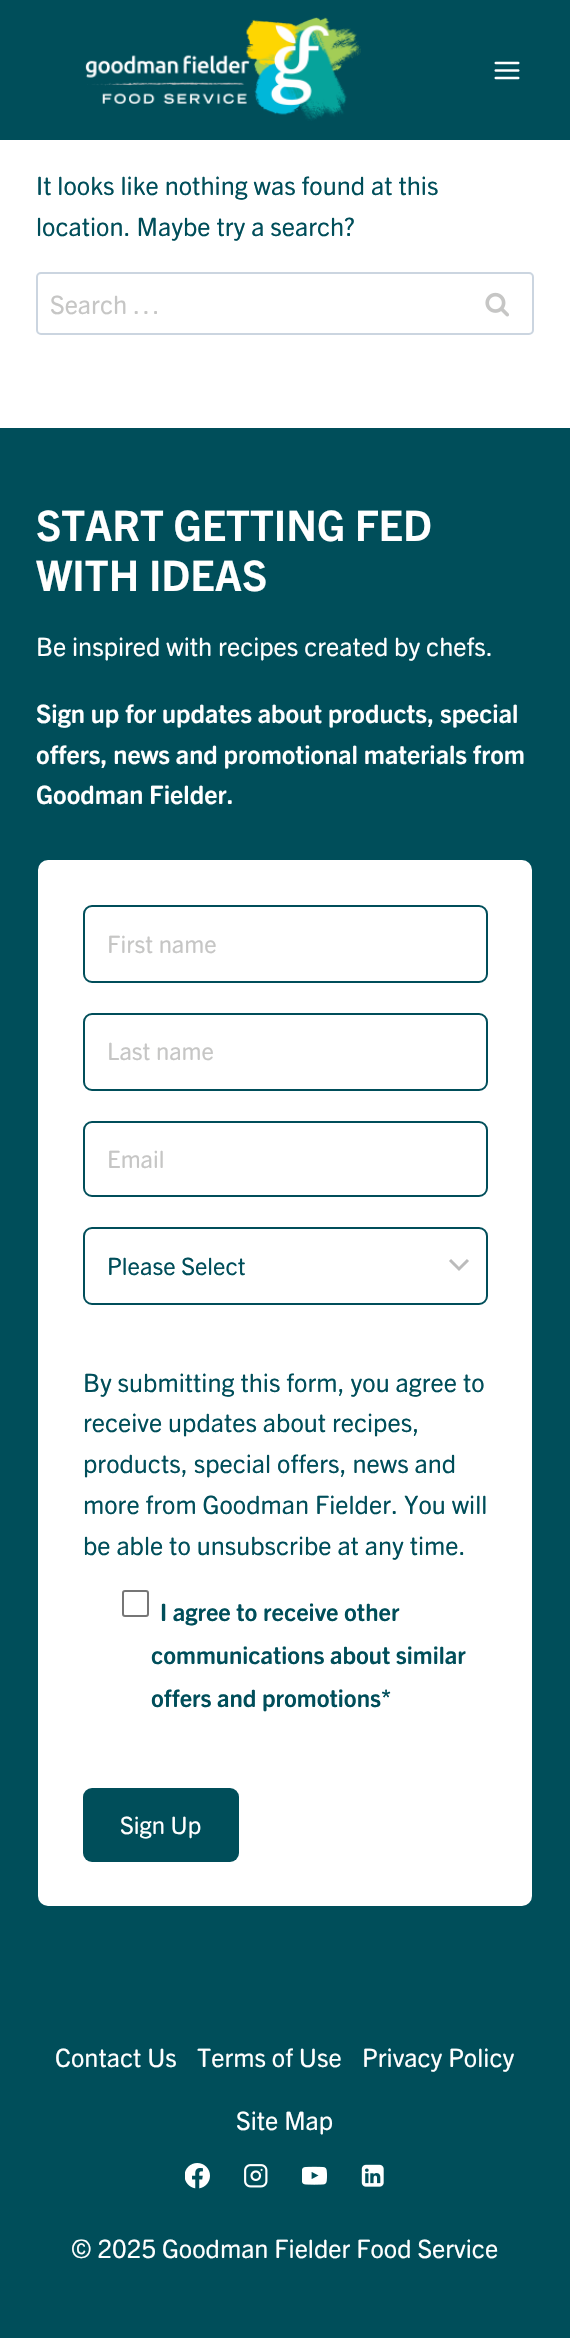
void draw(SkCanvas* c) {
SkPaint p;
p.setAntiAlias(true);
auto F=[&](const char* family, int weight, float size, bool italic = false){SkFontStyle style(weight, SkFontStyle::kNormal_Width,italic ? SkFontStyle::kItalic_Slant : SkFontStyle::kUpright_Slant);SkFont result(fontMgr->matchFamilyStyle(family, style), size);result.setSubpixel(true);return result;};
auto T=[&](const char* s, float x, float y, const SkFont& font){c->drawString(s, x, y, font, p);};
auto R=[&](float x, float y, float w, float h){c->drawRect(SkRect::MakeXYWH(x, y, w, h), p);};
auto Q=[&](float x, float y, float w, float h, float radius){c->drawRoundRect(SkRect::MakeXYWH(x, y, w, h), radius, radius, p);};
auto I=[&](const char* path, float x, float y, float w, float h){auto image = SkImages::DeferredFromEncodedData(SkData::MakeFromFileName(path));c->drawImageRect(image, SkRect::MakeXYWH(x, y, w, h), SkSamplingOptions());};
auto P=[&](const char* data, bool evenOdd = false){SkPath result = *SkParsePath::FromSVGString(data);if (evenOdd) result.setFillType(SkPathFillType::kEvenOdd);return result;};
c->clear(0xffffffff);
p.setColor(0xff004e5a);
R(0,0,570,140);
I("1.png",85,17,276,104);
I("2.png",494,61,26,19);
auto f1 = F("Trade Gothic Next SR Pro",400,25.5);
T("It looks like nothing was found at this",36,195,f1);
T("location. Maybe try a search?",36,236,f1);
p.setStroke(true);
p.setStrokeWidth(2);
p.setColor(0xffcbd5e0);
c->drawRoundRect(SkRect::MakeXYWH(37,273,496,61),4,4,p);
p.setStroke(false);
p.setColor(0xffc6c6c5);
T("Search …",50,314,f1);
I("3.png",485,292,24,25);
p.setColor(0xff004e5a);
R(0,428,570,1910);
auto f2 = F("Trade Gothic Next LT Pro",700,42);
p.setColor(0xffffffff);
T("START GETTING FED",36,541,f2);
T("WITH IDEAS",36,591,f2);
T("Be inspired with recipes created by chefs.",36,656,f1);
auto f3 = F("Trade Gothic Next SR Pro",700,25.5);
T("Sign up for updates about products, special",36,723,f3);
T("offers, news and promotional materials from",36,764,f3);
T("Goodman Fielder.",36,804,f3);
c->drawRoundRect(SkRect::MakeXYWH(37,859,496,1048),11,11,p);
p.setStroke(true);
p.setColor(0xff004e5a);
c->drawRoundRect(SkRect::MakeXYWH(37,859,496,1048),11,11,p);
c->drawRoundRect(SkRect::MakeXYWH(84,906,403,76),8,8,p);
auto f4 = F("Trade Gothic Next SR Pro",400,24);
p.setStroke(false);
p.setColor(0xffc6c6c5);
T("First name",107,953,f4);
p.setStroke(true);
p.setColor(0xff004e5a);
c->drawRoundRect(SkRect::MakeXYWH(84,1014,403,76),8,8,p);
p.setStroke(false);
p.setColor(0xffc6c6c5);
T("Last name",107,1060,f4);
p.setStroke(true);
p.setColor(0xff004e5a);
c->drawRoundRect(SkRect::MakeXYWH(84,1122,403,74),8,8,p);
p.setStroke(false);
p.setColor(0xffc6c6c5);
T("Email",107,1168,f4);
p.setStroke(true);
p.setStrokeWidth(3);
p.setColor(0xffbbbbbb);
c->drawPath(P("M450 1260l9 9l9-9"),p);
p.setStrokeWidth(2);
p.setColor(0xff004e5a);
c->drawRoundRect(SkRect::MakeXYWH(84,1228,403,76),8,8,p);
p.setStroke(false);
T("Please Select",107,1275,f4);
T("By submitting this form, you agree to",83,1392,f1);
T("receive updates about recipes,",83,1432,f1);
T("products, special offers, news and",83,1473,f1);
T("more from Goodman Fielder. You will",83,1514,f1);
T("be able to unsubscribe at any time.",83,1555,f1);
p.setStroke(true);
p.setColor(0xff767676);
c->drawRoundRect(SkRect::MakeXYWH(123,1591,25,25),2,2,p);
auto f5 = F("Trade Gothic Next SR Pro",700,24);
p.setStroke(false);
p.setColor(0xff004e5a);
T("I agree to receive other",160,1621,f5);
T("communications about similar",151,1664,f5);
T("offers and promotions*",151,1707,f5);
Q(83,1788,156,74,9);
p.setColor(0xffffffff);
T("Sign Up",120,1834,f4);
T("Contact Us",55,2067,f1);
T("Terms of Use",197,2067,f1);
T("Privacy Policy",362,2067,f1);
T("Site Map",236,2130,f1);
I("4.png",185,2163,25,26);
I("5.png",244,2164,24,24);
I("6.png",302,2166,25,19);
I("7.png",361,2164,23,23);
T("© 2025 Goodman Fielder Food Service",71,2258,f1);
}
